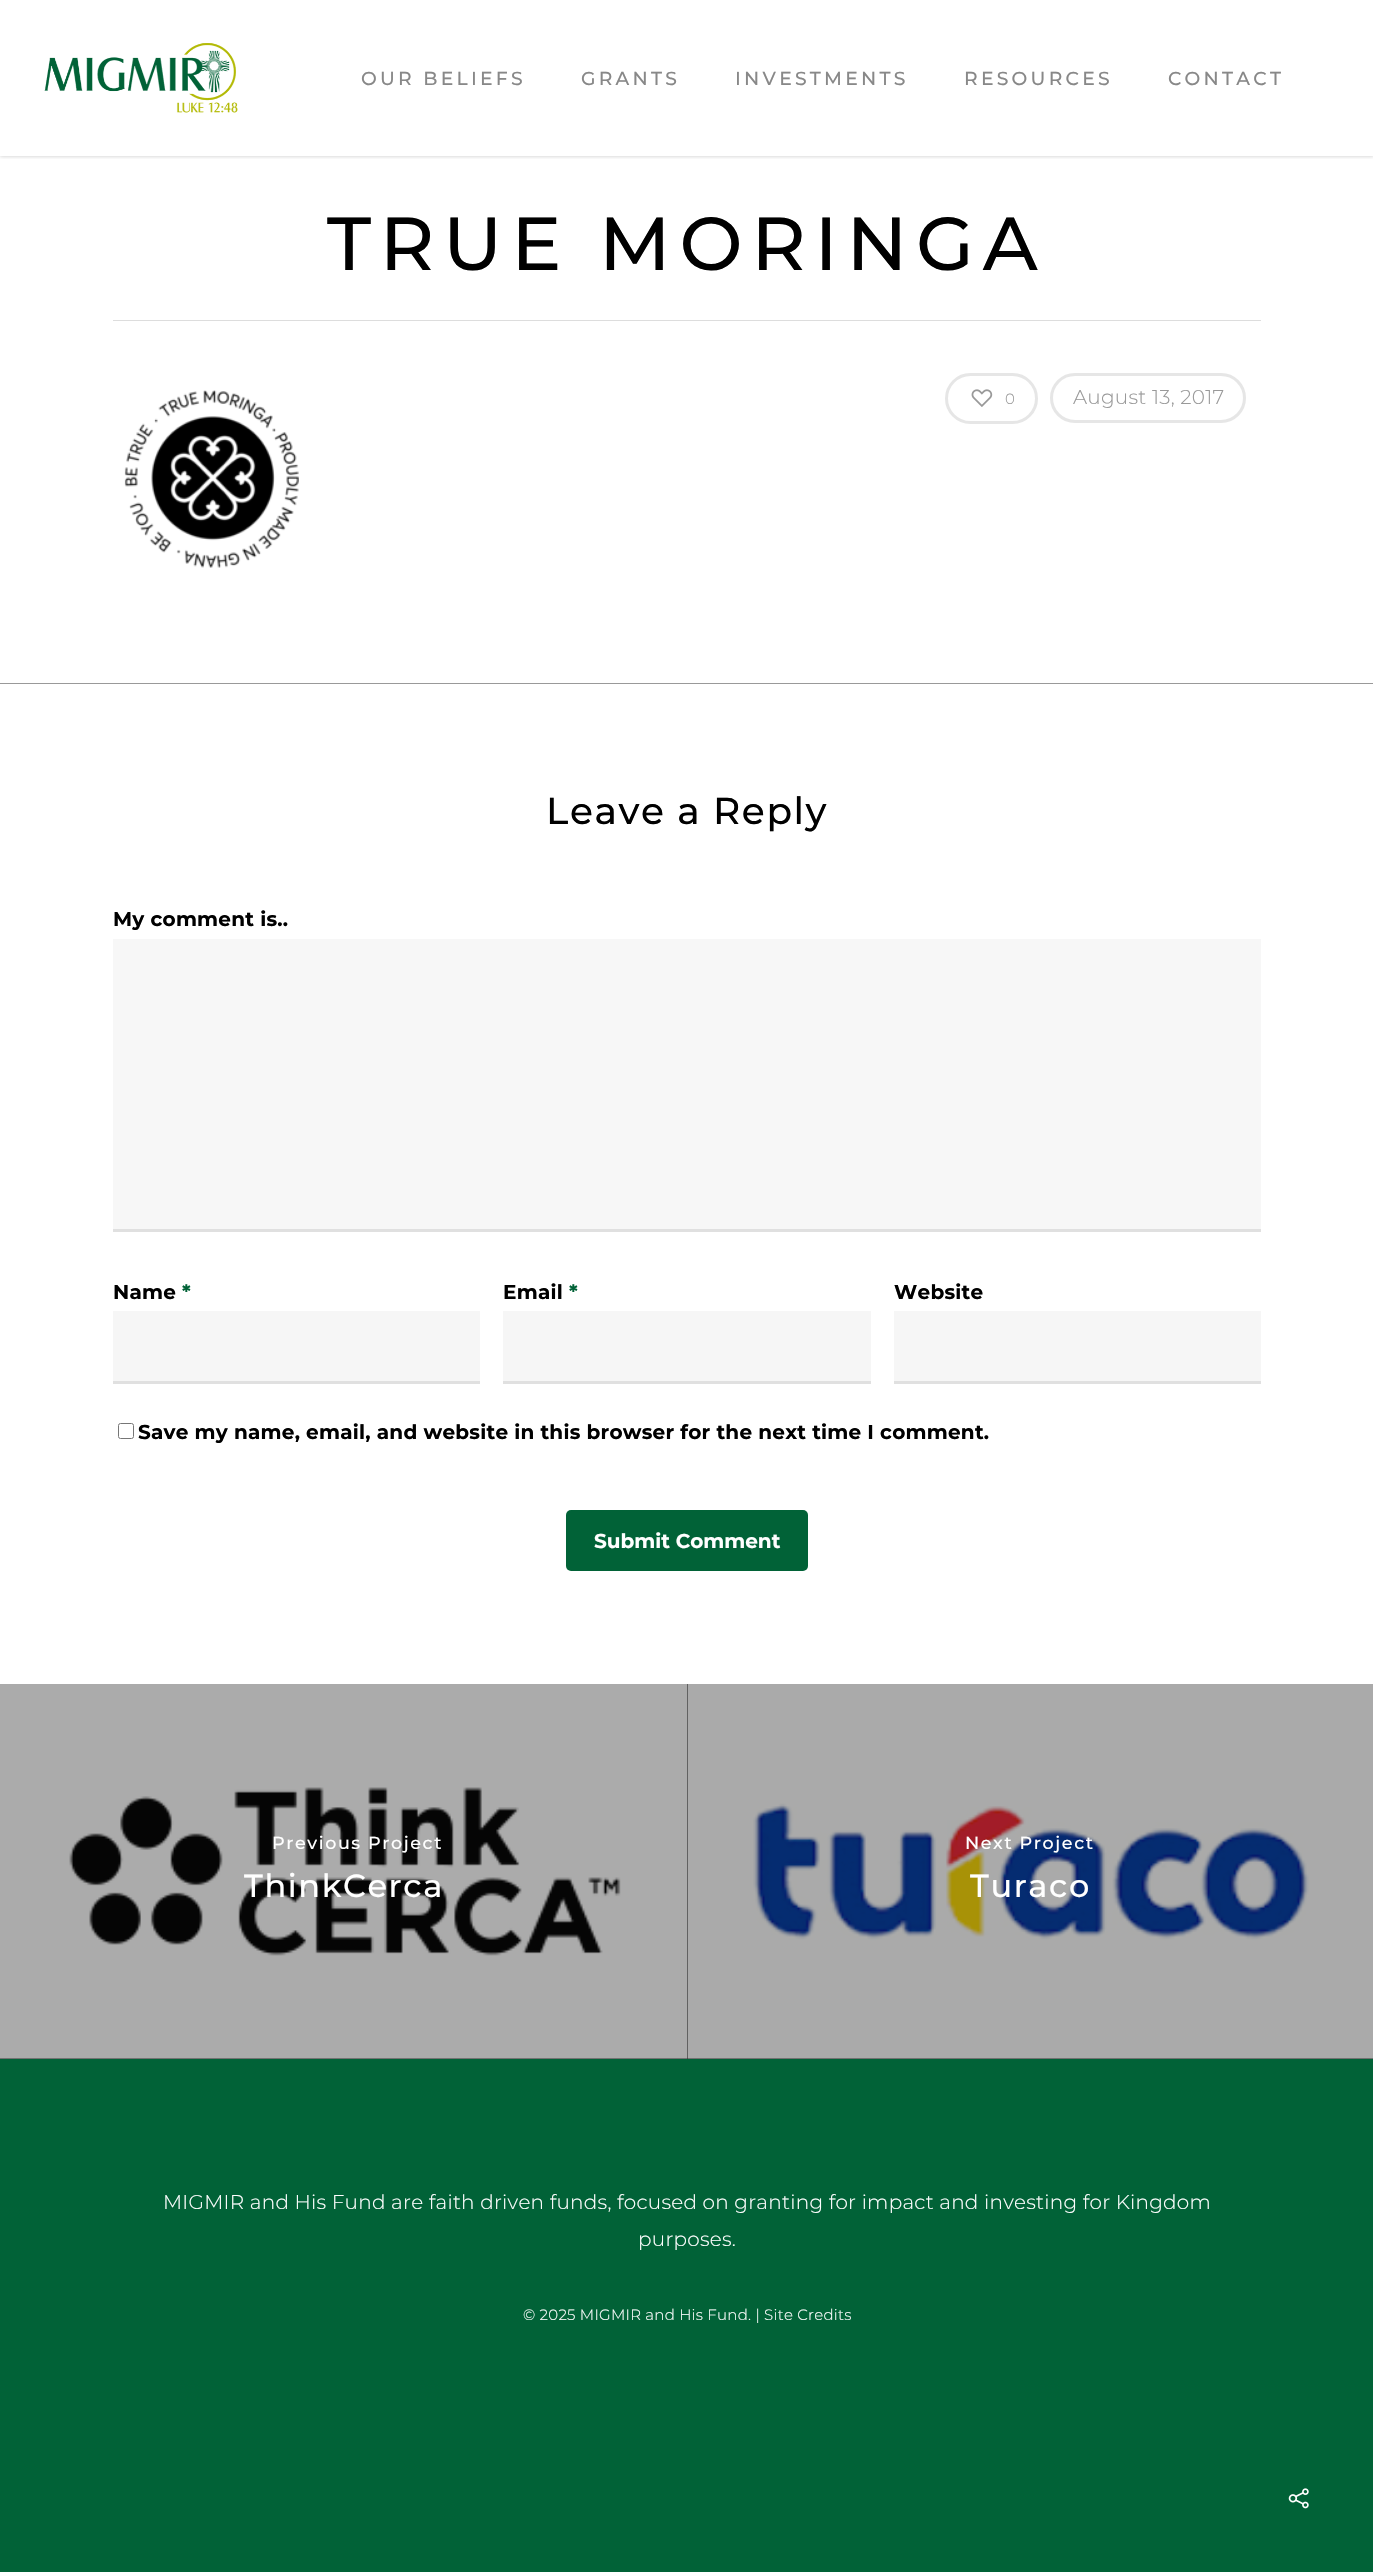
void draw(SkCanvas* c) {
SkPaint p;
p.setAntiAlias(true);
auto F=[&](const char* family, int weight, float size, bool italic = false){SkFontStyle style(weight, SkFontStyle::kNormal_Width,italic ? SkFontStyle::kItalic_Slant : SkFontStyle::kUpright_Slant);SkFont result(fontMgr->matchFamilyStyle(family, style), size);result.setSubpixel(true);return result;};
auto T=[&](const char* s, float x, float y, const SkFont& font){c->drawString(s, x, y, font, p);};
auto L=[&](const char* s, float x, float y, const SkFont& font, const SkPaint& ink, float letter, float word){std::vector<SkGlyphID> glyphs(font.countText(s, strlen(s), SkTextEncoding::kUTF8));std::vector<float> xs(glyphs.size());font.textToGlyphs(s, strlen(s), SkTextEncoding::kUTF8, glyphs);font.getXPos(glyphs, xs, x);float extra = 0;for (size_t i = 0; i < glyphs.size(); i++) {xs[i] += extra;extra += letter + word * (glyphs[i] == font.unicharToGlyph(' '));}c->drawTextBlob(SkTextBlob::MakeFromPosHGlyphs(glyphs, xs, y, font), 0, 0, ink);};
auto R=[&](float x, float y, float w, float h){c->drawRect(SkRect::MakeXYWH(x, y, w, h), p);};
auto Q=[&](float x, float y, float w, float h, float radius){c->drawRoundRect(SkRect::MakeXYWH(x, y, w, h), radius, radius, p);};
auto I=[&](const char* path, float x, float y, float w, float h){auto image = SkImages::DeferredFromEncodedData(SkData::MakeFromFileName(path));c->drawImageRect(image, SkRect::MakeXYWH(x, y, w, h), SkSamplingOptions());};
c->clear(0xff016237);
p.setColor(0xffffffff);
R(0,0,1373,1684);
c->save();
c->clipRect(SkRect::MakeXYWH(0,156,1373,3));
p.setColor(0x38000000);
p.setMaskFilter(SkMaskFilter::MakeBlur(kNormal_SkBlurStyle, 2));
c->drawRect(SkRect::MakeXYWH(0,0,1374,156),p);
p.setMaskFilter(nullptr);
c->restore();
I("1.png",44,43,194,70);
auto f1 = F("Montserrat",500,18.75);
p.setColor(0xff888888);
L("OUR BELIEFS",361,85,f1,p,3.25,0);
L("GRANTS",581,85,f1,p,3.25,0);
L("INVESTMENTS",735,85,f1,p,3.25,0);
L("RESOURCES",964,85,f1,p,3.25,0);
L("CONTACT",1168,85,f1,p,3.25,0);
p.setColor(0xffdddddd);
R(113,320,1148,1);
auto f2 = F("Montserrat",500,75);
p.setColor(0xff000000);
L("TRUE MORINGA",327,270,f2,p,8.75,0);
I("2.png",124,390,175,178);
p.setStroke(true);
p.setStrokeWidth(3);
p.setColor(0xffe6e6e6);
c->drawRoundRect(SkRect::MakeXYWH(946.5,374.5,90,48),24,24,p);
I("3.png",971,389,22,18);
auto f3 = F("Montserrat",300,15);
p.setStroke(false);
p.setColor(0xff999999);
L("0",1005,404,f3,p,.25,0);
p.setStroke(true);
p.setColor(0xffe6e6e6);
c->drawRoundRect(SkRect::MakeXYWH(1051.5,374.5,193,47),23.5,23.5,p);
auto f4 = F("Montserrat",300,20);
p.setStroke(false);
p.setColor(0xff999999);
L("August 13, 2017",1073,404,f4,p,.25,0);
R(0,683,1373,1);
auto f5 = F("Montserrat",500,37.5);
p.setColor(0xff000000);
L("Leave a Reply",546,824,f5,p,1.6,0);
auto f6 = F("Montserrat",700,20);
L("My comment is..",113,926,f6,p,.25,0);
p.setColor(0xfff7f7f7);
R(113,939,1148,290);
p.setColor(0xffe0e0e0);
R(113,1229,1148,3);
p.setColor(0xff000000);
L("Name",113,1299,f6,p,.25,0);
p.setColor(0xff016237);
L("*",182,1299,f6,p,.25,0);
p.setColor(0xfff6f6f6);
R(113,1311,367,70);
p.setColor(0xffe0e0e0);
R(113,1381,367,3);
p.setColor(0xff000000);
L("Email",503,1299,f6,p,.25,0);
p.setColor(0xff016237);
L("*",569,1299,f6,p,.25,0);
p.setColor(0xfff6f6f6);
R(503,1311,368,70);
p.setColor(0xffe0e0e0);
R(503,1381,368,3);
p.setColor(0xff000000);
L("Website",894,1299,f6,p,.25,0);
p.setColor(0xfff6f6f6);
R(894,1311,367,70);
p.setColor(0xffe0e0e0);
R(894,1381,367,3);
p.setStroke(true);
p.setStrokeWidth(1);
p.setColor(0xff767676);
c->drawRoundRect(SkRect::MakeXYWH(118.5,1423.5,15,15),2,2,p);
p.setStroke(false);
p.setColor(0xff000000);
L("Save my name, email, and website in this browser for the next time I comment.",138,1439,f6,p,.25,0);
p.setColor(0xff016237);
Q(566,1510,242,61,5);
p.setColor(0xffffffff);
T("Submit Comment",594,1548,f6);
p.setColor(0xff333333);
R(0,1684,688,375);
I("4.png",0,1684,688,375);
p.setColor(0xff262626);
R(688,2058,685,1);
I("5.png",687,1684,686,375);
p.setColor(0x590d0d0d);
R(0,1684,688,375);
auto f7 = F("Montserrat",500,17.5);
p.setColor(0xffffffff);
L("Previous Project",272,1849,f7,p,1.6,0);
auto f8 = F("Montserrat",500,32);
L("ThinkCerca",244,1897,f8,p,1.6,0);
L("Next Project",965,1849,f7,p,1.6,0);
L("Turaco",970,1897,f8,p,1.6,0);
L("MIGMIR and His Fund are faith driven funds, focused on granting for impact and investing for Kingdom",163,2209,f4,p,.25,0);
L("purposes.",638,2246,f4,p,.25,0);
L("© 2025 MIGMIR and His Fund. | Site Credits",523,2320,f3,p,.25,0);
I("6.png",1288,2488,21,21);
}
